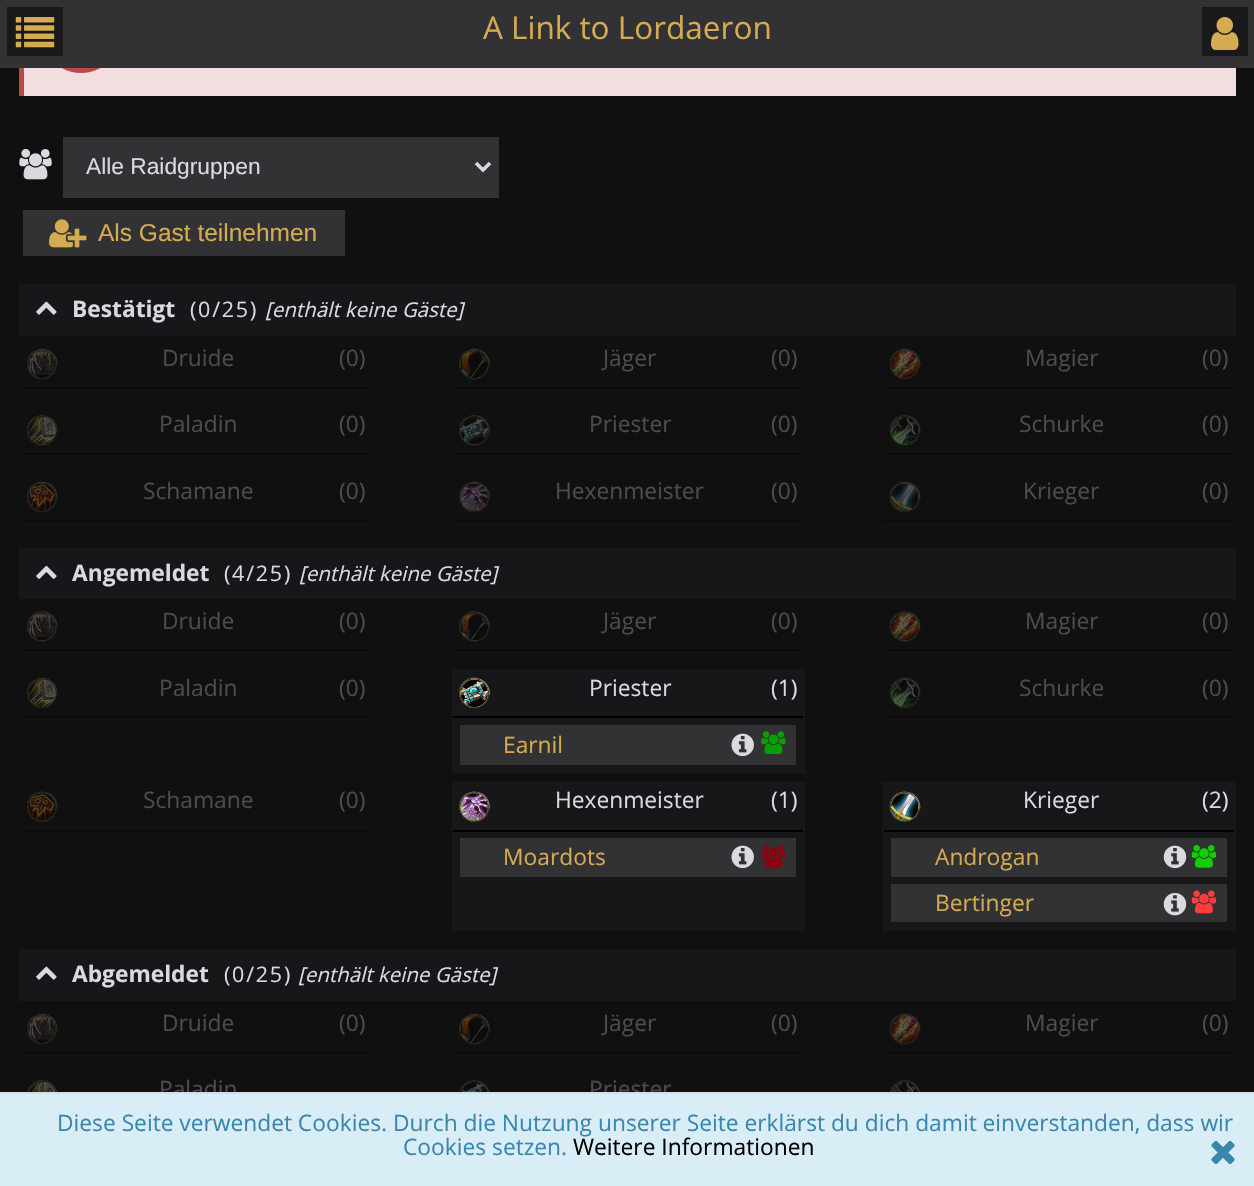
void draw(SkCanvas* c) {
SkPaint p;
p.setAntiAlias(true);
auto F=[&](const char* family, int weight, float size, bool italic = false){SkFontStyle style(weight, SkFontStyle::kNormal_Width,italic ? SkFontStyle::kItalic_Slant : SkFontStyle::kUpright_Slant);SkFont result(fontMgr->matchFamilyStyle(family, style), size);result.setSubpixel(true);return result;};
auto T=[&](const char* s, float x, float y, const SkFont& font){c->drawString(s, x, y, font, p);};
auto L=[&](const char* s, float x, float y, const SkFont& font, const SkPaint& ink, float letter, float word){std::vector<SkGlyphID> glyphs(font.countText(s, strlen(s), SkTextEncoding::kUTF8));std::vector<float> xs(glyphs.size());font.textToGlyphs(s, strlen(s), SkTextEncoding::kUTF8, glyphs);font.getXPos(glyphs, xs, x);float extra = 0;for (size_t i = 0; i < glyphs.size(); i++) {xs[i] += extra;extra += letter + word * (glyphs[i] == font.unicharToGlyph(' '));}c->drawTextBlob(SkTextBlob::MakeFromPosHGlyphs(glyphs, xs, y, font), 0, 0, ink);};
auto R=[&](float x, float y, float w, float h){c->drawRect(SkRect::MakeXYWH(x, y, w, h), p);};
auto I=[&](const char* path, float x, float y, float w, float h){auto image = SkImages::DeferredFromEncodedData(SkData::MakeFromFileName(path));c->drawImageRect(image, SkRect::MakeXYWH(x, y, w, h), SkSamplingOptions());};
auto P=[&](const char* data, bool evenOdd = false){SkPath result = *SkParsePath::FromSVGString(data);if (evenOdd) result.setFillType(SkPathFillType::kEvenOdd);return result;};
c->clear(0xff101011);
p.setColor(0xff323235);
R(0,0,1254,68);
p.setColor(0xff19191b);
R(7,7,56,49);
I("1.png",15,17,40,31);
auto f1 = F("Open Sans",400,31.5);
p.setColor(0xffd5ab51);
T("A Link to Lordaeron",483,39,f1);
p.setColor(0xff19191b);
R(1202,7,46,49);
I("2.png",1211,17,28,33);
p.setColor(0xfff2dede);
R(24,68,1212,28);
p.setColor(0xffb94a48);
R(19,68,5,28);
I("3.png",62,68,38,5);
I("4.png",19,149,33,31);
p.setColor(0xff323235);
R(63,137,436,61);
p.setStroke(true);
p.setStrokeWidth(3.5);
p.setColor(0xffd9d9df);
c->drawPath(P("M476 163l7 7l7-7"),p);
auto f2 = F("Liberation Sans",400,22.75);
p.setStroke(false);
T("Alle Raidgruppen",86,174,f2);
p.setColor(0xff323235);
R(23,210,322,46);
I("5.png",49,219,38,29);
auto f3 = F("Liberation Sans",400,24.5);
p.setColor(0xffd5ab51);
T("Als Gast teilnehmen",98,241,f3);
p.setColor(0xff171719);
R(19,284,1217,52);
I("6.png",36,301,21,14);
auto f4 = F("Open Sans",700,22.75);
p.setColor(0xffd9d9df);
T("Bestätigt",72,317,f4);
auto f5 = F("Open Sans",400,21.5);
L("(0/25)",190,317,f5,p,1.75,0);
auto f6 = F("Open Sans",400,20.5,true);
T("[enthält keine Gäste]",265,317,f6);
p.setColor(0xff0b0b0c);
R(21,387,350,2);
I("7.png",27,348,31,32);
auto f7 = F("Open Sans",400,22.75);
p.setColor(0xff4c4c4f);
T("Druide",162,366,f7);
T("(0)",339,366,f7);
p.setColor(0xff0b0b0c);
R(453,387,350,2);
I("8.png",459,348,31,32);
p.setColor(0xff4c4c4f);
T("Jäger",603,366,f7);
T("(0)",771,366,f7);
p.setColor(0xff0b0b0c);
R(884,387,350,2);
I("9.png",889,348,32,32);
p.setColor(0xff4c4c4f);
T("Magier",1025,366,f7);
T("(0)",1202,366,f7);
p.setColor(0xff0b0b0c);
R(21,453,350,2);
I("10.png",27,415,31,31);
p.setColor(0xff4c4c4f);
T("Paladin",159,432,f7);
T("(0)",339,432,f7);
p.setColor(0xff0b0b0c);
R(453,453,350,2);
I("11.png",459,415,31,31);
p.setColor(0xff4c4c4f);
T("Priester",589,432,f7);
T("(0)",771,432,f7);
p.setColor(0xff0b0b0c);
R(884,453,350,2);
I("12.png",889,415,32,31);
p.setColor(0xff4c4c4f);
T("Schurke",1019,432,f7);
T("(0)",1202,432,f7);
p.setColor(0xff0b0b0c);
R(21,520,350,2);
I("13.png",27,481,31,32);
p.setColor(0xff4c4c4f);
T("Schamane",143,499,f7);
T("(0)",339,499,f7);
p.setColor(0xff0b0b0c);
R(453,520,350,2);
I("14.png",459,481,31,32);
p.setColor(0xff4c4c4f);
T("Hexenmeister",555,499,f7);
T("(0)",771,499,f7);
p.setColor(0xff0b0b0c);
R(884,520,350,2);
I("15.png",889,481,32,32);
p.setColor(0xff4c4c4f);
T("Krieger",1023,499,f7);
T("(0)",1202,499,f7);
p.setColor(0xff171719);
R(19,548,1217,51);
I("16.png",36,565,21,14);
p.setColor(0xffd9d9df);
T("Angemeldet",72,581,f4);
L("(4/25)",224,581,f5,p,1.75,0);
T("[enthält keine Gäste]",299,581,f6);
p.setColor(0xff0b0b0c);
R(21,649,350,2);
I("17.png",27,611,31,31);
p.setColor(0xff4c4c4f);
T("Druide",162,629,f7);
T("(0)",339,629,f7);
p.setColor(0xff0b0b0c);
R(453,649,350,2);
I("18.png",459,611,31,31);
p.setColor(0xff4c4c4f);
T("Jäger",603,629,f7);
T("(0)",771,629,f7);
p.setColor(0xff0b0b0c);
R(884,649,350,2);
I("19.png",889,611,32,31);
p.setColor(0xff4c4c4f);
T("Magier",1025,629,f7);
T("(0)",1202,629,f7);
p.setColor(0xff0b0b0c);
R(21,716,350,2);
I("20.png",27,677,31,32);
p.setColor(0xff4c4c4f);
T("Paladin",159,696,f7);
T("(0)",339,696,f7);
p.setColor(0xff171719);
R(452,669,353,105);
p.setColor(0xff000000);
R(453,716,350,2);
I("21.png",459,677,31,32);
p.setColor(0xffd9d9df);
T("Priester",589,696,f7);
T("(1)",771,696,f7);
p.setColor(0xff323235);
R(460,725,336,40);
p.setColor(0xffd5ab51);
T("Earnil",503,753,f7);
I("22.png",731,733,23,24);
I("23.png",761,731,25,23);
p.setColor(0xff0b0b0c);
R(884,716,350,2);
I("24.png",889,677,32,32);
p.setColor(0xff4c4c4f);
T("Schurke",1019,696,f7);
T("(0)",1202,696,f7);
p.setColor(0xff0b0b0c);
R(21,830,350,2);
I("25.png",27,791,31,31);
p.setColor(0xff4c4c4f);
T("Schamane",143,808,f7);
T("(0)",339,808,f7);
p.setColor(0xff171719);
R(452,782,353,149);
p.setColor(0xff000000);
R(453,830,350,2);
I("26.png",459,791,31,32);
p.setColor(0xffd9d9df);
T("Hexenmeister",555,808,f7);
T("(1)",771,808,f7);
p.setColor(0xff323235);
R(460,838,336,39);
p.setColor(0xffd5ab51);
T("Moardots",503,865,f7);
I("22.png",731,845,23,24);
I("27.png",761,845,25,23);
p.setColor(0xff171719);
R(882,782,354,149);
p.setColor(0xff000000);
R(884,830,350,2);
I("28.png",889,791,32,32);
p.setColor(0xffd9d9df);
T("Krieger",1023,808,f7);
T("(2)",1202,808,f7);
p.setColor(0xff323235);
R(891,838,336,39);
p.setColor(0xffd5ab51);
T("Androgan",935,865,f7);
I("29.png",1163,845,24,24);
I("30.png",1191,845,26,23);
p.setColor(0xff323235);
R(891,884,336,38);
p.setColor(0xffd5ab51);
T("Bertinger",935,911,f7);
I("31.png",1163,893,24,23);
I("32.png",1191,890,26,24);
p.setColor(0xff171719);
R(19,949,1217,52);
I("6.png",36,966,21,14);
p.setColor(0xffd9d9df);
T("Abgemeldet",72,982,f4);
L("(0/25)",224,982,f5,p,1.75,0);
T("[enthält keine Gäste]",298,982,f6);
p.setColor(0xff0b0b0c);
R(21,1052,350,2);
I("7.png",27,1013,31,32);
p.setColor(0xff4c4c4f);
T("Druide",162,1031,f7);
T("(0)",339,1031,f7);
p.setColor(0xff0b0b0c);
R(453,1052,350,2);
I("8.png",459,1013,31,32);
p.setColor(0xff4c4c4f);
T("Jäger",603,1031,f7);
T("(0)",771,1031,f7);
p.setColor(0xff0b0b0c);
R(884,1052,350,2);
I("9.png",889,1013,32,32);
p.setColor(0xff4c4c4f);
T("Magier",1025,1031,f7);
T("(0)",1202,1031,f7);
I("33.png",27,1080,30,12);
T("Paladin",159,1097,f7);
I("34.png",459,1080,31,12);
T("Priester",589,1097,f7);
I("35.png",889,1080,31,12);
p.setColor(0xffd9edf7);
R(0,1094,1254,92);
p.setColor(0xffcee1eb);
R(0,1092,1254,2);
p.setColor(0xff3a87ad);
T("Diese Seite verwendet Cookies. Durch die Nutzung unserer Seite erklärst du dich damit einverstanden, dass wir",57,1131,f7);
T("Cookies setzen.",403,1155,f7);
p.setColor(0xff000000);
T("Weitere Informationen",573,1155,f7);
I("36.png",1211,1140,24,25);
}
